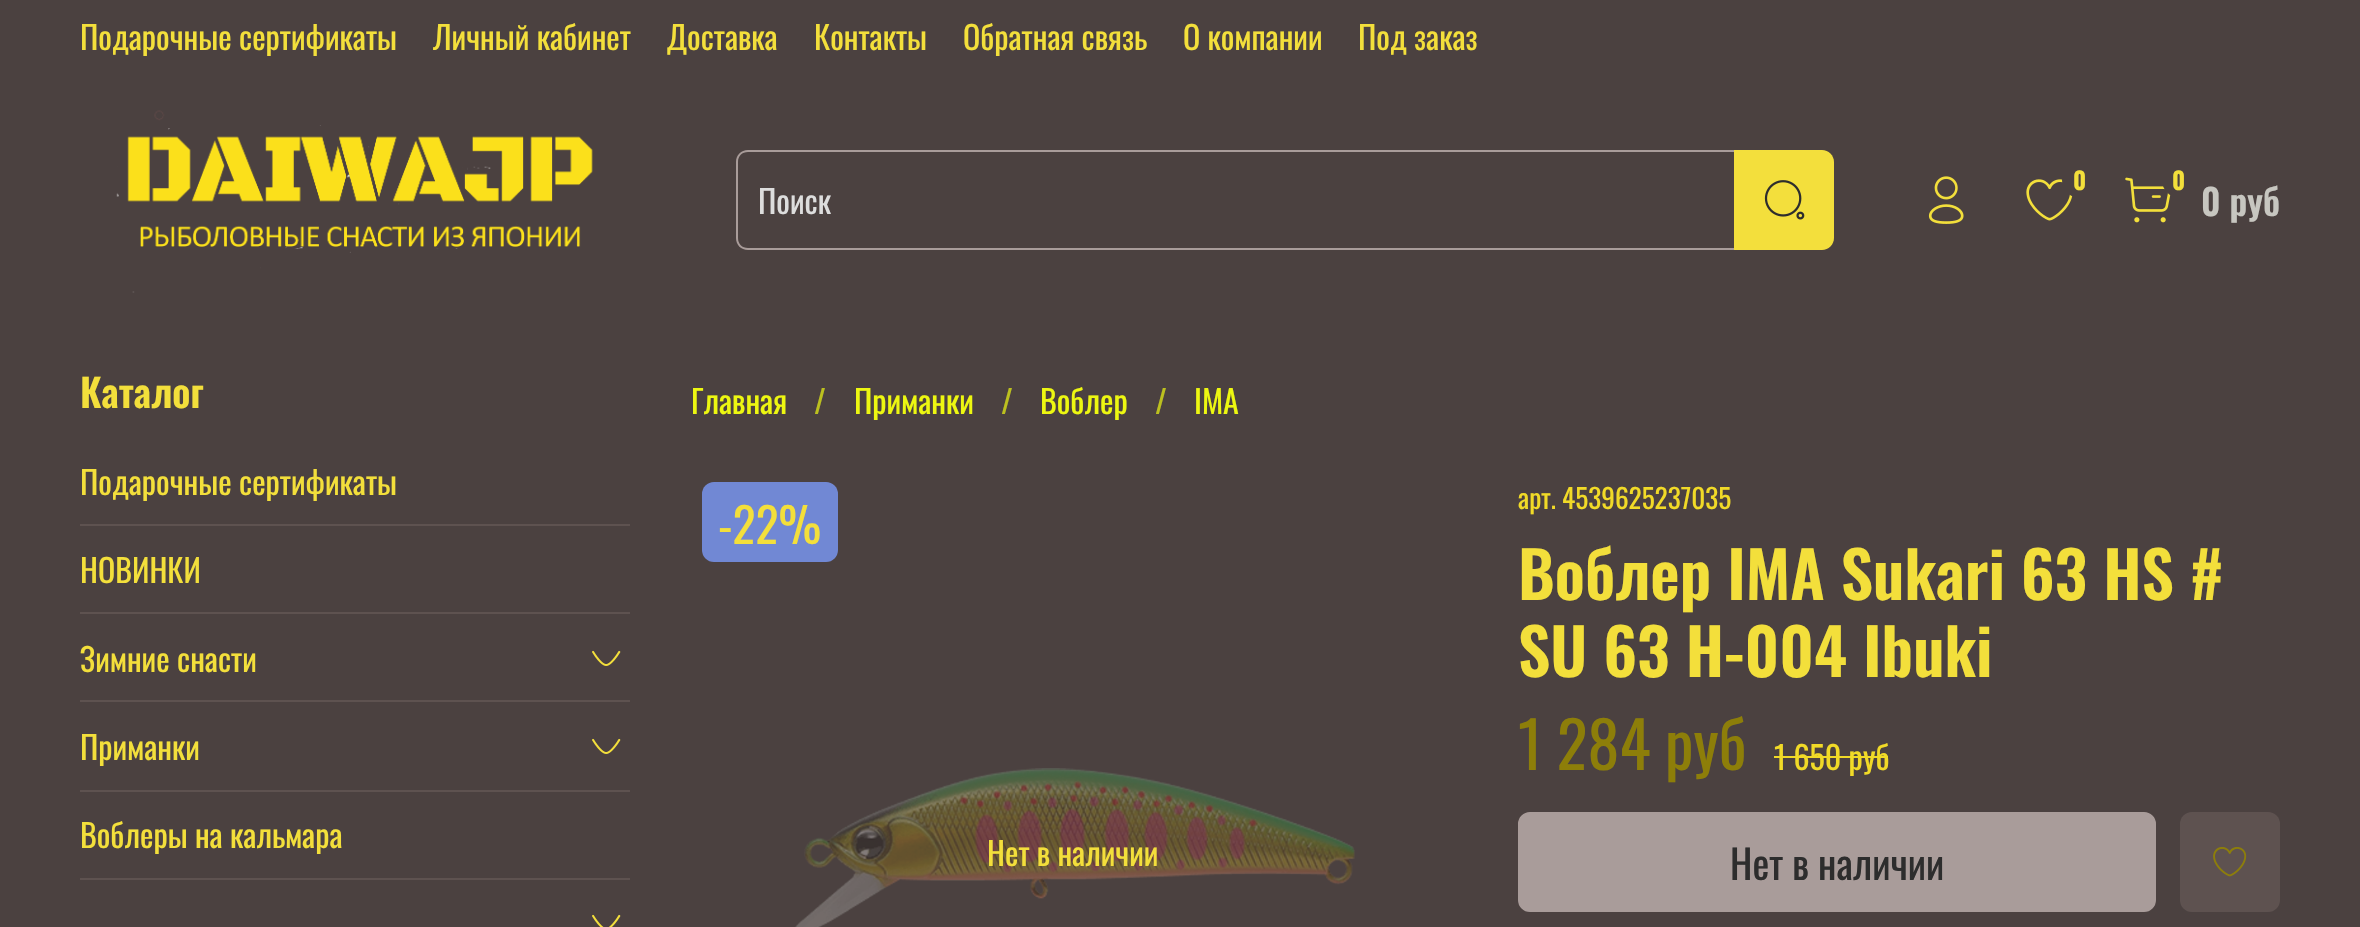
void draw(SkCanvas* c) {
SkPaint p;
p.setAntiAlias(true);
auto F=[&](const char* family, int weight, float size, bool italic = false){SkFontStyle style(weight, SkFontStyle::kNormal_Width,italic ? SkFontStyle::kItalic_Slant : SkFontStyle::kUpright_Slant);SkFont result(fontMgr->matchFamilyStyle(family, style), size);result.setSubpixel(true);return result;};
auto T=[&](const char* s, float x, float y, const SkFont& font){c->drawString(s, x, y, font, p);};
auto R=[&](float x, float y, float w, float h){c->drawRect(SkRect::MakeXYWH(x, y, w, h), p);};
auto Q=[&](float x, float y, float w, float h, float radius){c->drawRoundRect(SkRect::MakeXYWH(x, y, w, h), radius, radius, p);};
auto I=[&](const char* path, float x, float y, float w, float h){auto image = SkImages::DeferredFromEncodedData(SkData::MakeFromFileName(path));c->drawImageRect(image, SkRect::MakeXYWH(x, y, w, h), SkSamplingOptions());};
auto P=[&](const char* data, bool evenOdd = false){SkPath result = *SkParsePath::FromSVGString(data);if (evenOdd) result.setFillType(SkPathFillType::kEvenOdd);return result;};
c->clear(0xff4b4140);
auto f1 = F("Oswald",400,32);
p.setColor(0xfff3df3b);
T("Подарочные сертификаты",80,50,f1);
T("Личный кабинет",433,50,f1);
T("Доставка",667,50,f1);
T("Контакты",814,50,f1);
T("Обратная связь",963,50,f1);
T("О компании",1183,50,f1);
T("Под заказ",1358,50,f1);
I("1.png",116,110,477,183);
p.setColor(0xffa99c9a);
c->drawPath(P("M748 150h986v100h-986c-7 0-12-5-12-12v-76c0-7 5-12 12-12zm0 2h986v96h-986c-6 0-10-4-10-10v-76c0-6 4-10 10-10z",true),p);
p.setColor(0xffdddddd);
T("Поиск",758,214,f1);
p.setColor(0xfff3df3c);
c->drawPath(P("M1734 150h88c6.5 0 12 5.5 12 12v76c0 6.5-5.5 12-12 12h-88z"),p);
I("2.png",1764,180,41,40);
I("3.png",1928,176,36,48);
I("4.png",2026,179,47,42);
p.setColor(0xff4b4140);
c->drawCircle(2080,180,18,p);
auto f2 = F("Oswald",700,24);
p.setColor(0xfff3df3b);
T("0",2073,190,f2);
I("5.png",2125,177,46,46);
p.setColor(0xff4b4140);
c->drawCircle(2180,180,18,p);
p.setColor(0xfff3df3b);
T("0",2172,190,f2);
auto f3 = F("Oswald",600,36);
p.setColor(0xffc7c6c0);
T("0 руб",2201,216,f3);
auto f4 = F("Oswald",600,38.5);
p.setColor(0xfff3df3b);
T("Каталог",80,408,f4);
p.setColor(0xff5e5250);
R(80,524,550,2);
p.setColor(0xfff3df3b);
T("Подарочные сертификаты",80,495,f1);
p.setColor(0xff5e5250);
R(80,612,550,2);
p.setColor(0xfff3df3b);
T("НОВИНКИ",80,583,f1);
p.setColor(0xff5e5250);
R(80,700,550,2);
p.setColor(0xfff3df3b);
T("Зимние снасти",80,672,f1);
I("6.png",592,650,29,16);
p.setColor(0xff5e5250);
R(80,790,550,2);
p.setColor(0xfff3df3b);
T("Приманки",80,760,f1);
I("6.png",592,738,29,16);
p.setColor(0xff5e5250);
R(80,878,550,2);
p.setColor(0xfff3df3b);
T("Воблеры на кальмара",80,848,f1);
I("7.png",592,914,29,13);
p.setColor(0xffedf711);
T("Главная",691,414,f1);
p.setColor(0xffbcc01f);
T("/",814,414,f1);
p.setColor(0xffedf711);
T("Приманки",854,414,f1);
p.setColor(0xffbcc01f);
T("/",1001,414,f1);
p.setColor(0xffedf711);
T("Воблер",1040,414,f1);
p.setColor(0xffbcc01f);
T("/",1155,414,f1);
p.setColor(0xffedf711);
T("IMA",1194,414,f1);
p.setColor(0xff7188d4);
Q(702,482,136,80,12);
auto f5 = F("Oswald",400,48);
p.setColor(0xfff3df3b);
T("-22%",718,544,f5);
I("8.png",795,768,560,159);
T("Нет в наличии",987,866,f1);
auto f6 = F("Oswald",400,27.25);
p.setColor(0xfff1da27);
T("арт. 4539625237035",1518,509,f6);
auto f7 = F("Oswald",600,64);
p.setColor(0xfff3df3b);
T("Воблер IMA Sukari 63 HS #",1518,600,f7);
T("SU 63 H-004 Ibuki",1518,677,f7);
auto f8 = F("Oswald",400,64);
p.setColor(0xff8d7e09);
T("1 284 руб",1518,770,f8);
p.setColor(0xfff1da27);
T("1 650 руб",1774,770,f1);
R(1774,756,114,2);
p.setColor(0xffa99c9a);
c->drawRoundRect(SkRect::MakeXYWH(1519,813,636,98),11,11,p);
p.setStroke(true);
p.setStrokeWidth(2);
c->drawRoundRect(SkRect::MakeXYWH(1519,813,636,98),11,11,p);
auto f9 = F("Oswald",400,40);
p.setStroke(false);
p.setColor(0xff2d2d2d);
T("Нет в наличии",1730,880,f9);
p.setColor(0xff5e5250);
Q(2180,812,100,100,12);
I("9.png",2213,847,34,30);
}
